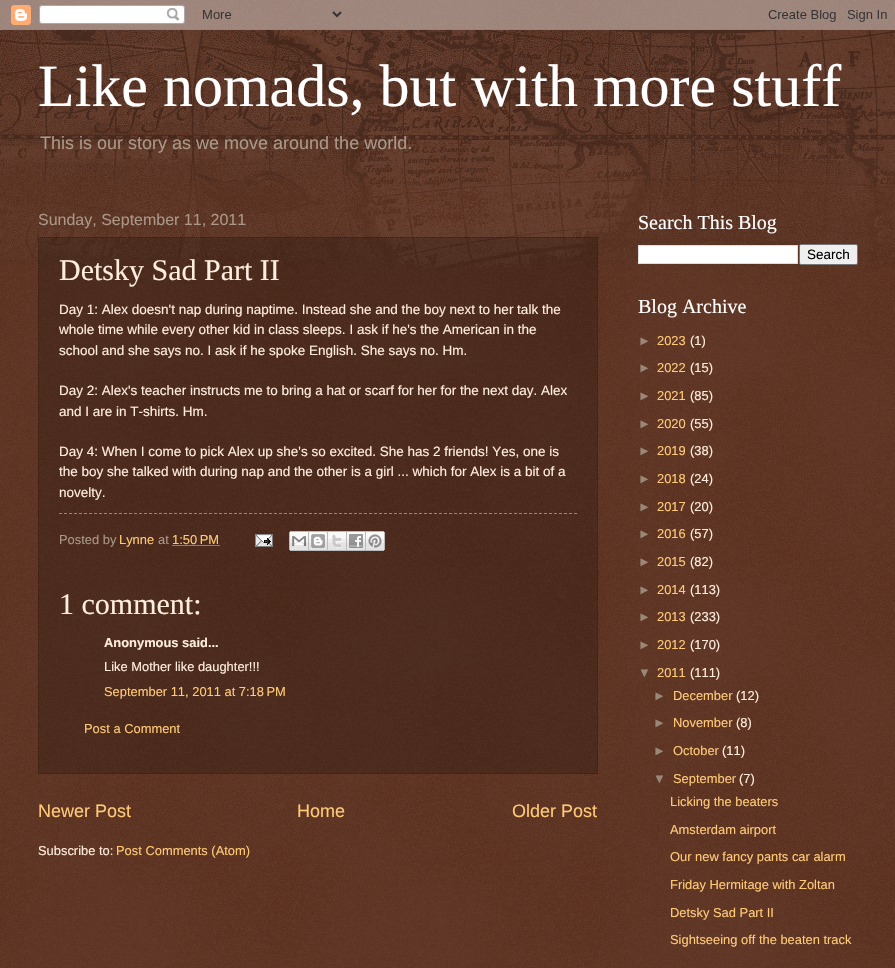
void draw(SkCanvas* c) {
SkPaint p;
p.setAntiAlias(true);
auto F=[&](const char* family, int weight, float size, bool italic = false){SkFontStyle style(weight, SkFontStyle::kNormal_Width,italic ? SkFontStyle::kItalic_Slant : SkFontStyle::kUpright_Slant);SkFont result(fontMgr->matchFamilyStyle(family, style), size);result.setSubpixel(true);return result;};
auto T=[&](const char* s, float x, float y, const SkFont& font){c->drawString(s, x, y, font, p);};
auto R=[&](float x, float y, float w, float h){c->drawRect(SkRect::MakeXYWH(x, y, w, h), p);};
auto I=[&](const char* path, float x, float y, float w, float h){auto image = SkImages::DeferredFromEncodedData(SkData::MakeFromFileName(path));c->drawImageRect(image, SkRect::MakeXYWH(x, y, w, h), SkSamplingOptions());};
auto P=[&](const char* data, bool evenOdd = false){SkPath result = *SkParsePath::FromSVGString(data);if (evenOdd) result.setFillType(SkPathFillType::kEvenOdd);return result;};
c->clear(0xff441300);
I("1.png",0,0,895,968);
I("2.png",0,0,895,30);
I("3.png",0,30,895,240);
auto f1 = F("Liberation Serif",400,60);
p.setColor(0xffffffff);
T("Like nomads, but with more stuff",38,106,f1);
auto f2 = F("Liberation Sans",400,18);
p.setColor(0xffaa9888);
T("This is our story as we move around the world.",40,149,f2);
auto f3 = F("Liberation Sans",400,16);
T("Sunday, September 11, 2011",38,225,f3);
p.setColor(0x33000000);
R(38,237,560,537);
p.setStroke(true);
p.setStrokeWidth(1);
p.setColor(0xff332111);
p.setPathEffect(SkDashPathEffect::Make({{1,1}}, 0));
c->drawPath(P("M38 237.5h560"),p);
p.setPathEffect(nullptr);
p.setPathEffect(SkDashPathEffect::Make({{1,1}}, 0));
c->drawPath(P("M597.5 237v537"),p);
p.setPathEffect(nullptr);
p.setPathEffect(SkDashPathEffect::Make({{1,1}}, 0));
c->drawPath(P("M38 773.5h560"),p);
p.setPathEffect(nullptr);
p.setPathEffect(SkDashPathEffect::Make({{1,1}}, 0));
c->drawPath(P("M38.5 237v537"),p);
p.setPathEffect(nullptr);
auto f4 = F("Liberation Serif",400,30);
p.setStroke(false);
p.setColor(0xffffeddd);
T("Detsky Sad Part II",59,280,f4);
auto f5 = F("Liberation Sans",400,13.5);
T("Day 1: Alex doesn't nap during naptime. Instead she and the boy next to her talk the",59,314,f5);
T("whole time while every other kid in class sleeps. I ask if he's the American in the",59,334,f5);
T("school and she says no. I ask if he spoke English. She says no. Hm.",59,355,f5);
T("Day 2: Alex's teacher instructs me to bring a hat or scarf for her for the next day. Alex",59,395,f5);
T("and I are in T-shirts. Hm.",59,416,f5);
T("Day 4: When I come to pick Alex up she's so excited. She has 2 friends! Yes, one is",59,456,f5);
T("the boy she talked with during nap and the other is a girl ... which for Alex is a bit of a",59,476,f5);
T("novelty.",59,497,f5);
p.setStroke(true);
p.setColor(0xff998777);
p.setPathEffect(SkDashPathEffect::Make({{3,2}}, 0));
c->drawPath(P("M59 513.5h518"),p);
p.setPathEffect(nullptr);
auto f6 = F("Liberation Sans",400,12.9);
p.setStroke(false);
p.setColor(0xffaa9888);
T("Posted by",59,544,f6);
p.setColor(0xffffca77);
T("Lynne",119,544,f6);
p.setColor(0xffaa9888);
T("at",158,544,f6);
p.setColor(0xffffca77);
T("1:50 PM",172,544,f6);
p.setStroke(true);
p.setPathEffect(SkDashPathEffect::Make({{1,1}}, 0));
c->drawPath(P("M172.5 545.5h47"),p);
p.setPathEffect(nullptr);
I("4.png",255,534,18,13);
I("5.png",289,531,20,20);
I("6.png",309,531,19,20);
I("7.png",328,531,19,20);
I("8.png",347,531,19,20);
I("9.png",366,531,19,20);
p.setStroke(false);
p.setColor(0xffffeddd);
T("1 comment:",59,614,f4);
auto f7 = F("Liberation Sans",700,12.9);
T("Anonymous said...",104,647,f7);
T("Like Mother like daughter!!!",104,671,f6);
p.setColor(0xffffca77);
T("September 11, 2011 at 7:18 PM",104,696,f6);
T("Post a Comment",84,733,f6);
T("Newer Post",38,817,f2);
T("Home",297,817,f2);
T("Older Post",512,817,f2);
p.setColor(0xffffeddd);
T("Subscribe to:",38,855,f6);
p.setColor(0xffffca77);
T("Post Comments (Atom)",116,855,f6);
auto f8 = F("Liberation Serif",400,20);
p.setColor(0xffffffff);
T("Search This Blog",638,229,f8);
c->drawRect(SkRect::MakeXYWH(638.5,245.5,159,18),p);
p.setStroke(true);
p.setColor(0xffdddddd);
c->drawRect(SkRect::MakeXYWH(638.5,245.5,159,18),p);
p.setStroke(false);
p.setColor(0xffefefef);
c->drawRoundRect(SkRect::MakeXYWH(799.5,244.5,58,20),1.5,1.5,p);
p.setStroke(true);
p.setColor(0xff767676);
c->drawRoundRect(SkRect::MakeXYWH(799.5,244.5,58,20),1.5,1.5,p);
p.setStroke(false);
p.setColor(0xff000000);
T("Search",807,259,f5);
p.setColor(0xffffffff);
T("Blog Archive",638,313,f8);
p.setColor(0xff998777);
T("►",638,345,f6);
p.setColor(0xffffca77);
T("2023",657,345,f6);
p.setColor(0xffffeddd);
T("(1)",690,345,f6);
p.setColor(0xff998777);
T("►",638,372,f6);
p.setColor(0xffffca77);
T("2022",657,372,f6);
p.setColor(0xffffeddd);
T("(15)",690,372,f6);
p.setColor(0xff998777);
T("►",638,400,f6);
p.setColor(0xffffca77);
T("2021",657,400,f6);
p.setColor(0xffffeddd);
T("(85)",690,400,f6);
p.setColor(0xff998777);
T("►",638,428,f6);
p.setColor(0xffffca77);
T("2020",657,428,f6);
p.setColor(0xffffeddd);
T("(55)",690,428,f6);
p.setColor(0xff998777);
T("►",638,455,f6);
p.setColor(0xffffca77);
T("2019",657,455,f6);
p.setColor(0xffffeddd);
T("(38)",690,455,f6);
p.setColor(0xff998777);
T("►",638,483,f6);
p.setColor(0xffffca77);
T("2018",657,483,f6);
p.setColor(0xffffeddd);
T("(24)",690,483,f6);
p.setColor(0xff998777);
T("►",638,511,f6);
p.setColor(0xffffca77);
T("2017",657,511,f6);
p.setColor(0xffffeddd);
T("(20)",690,511,f6);
p.setColor(0xff998777);
T("►",638,538,f6);
p.setColor(0xffffca77);
T("2016",657,538,f6);
p.setColor(0xffffeddd);
T("(57)",690,538,f6);
p.setColor(0xff998777);
T("►",638,566,f6);
p.setColor(0xffffca77);
T("2015",657,566,f6);
p.setColor(0xffffeddd);
T("(82)",690,566,f6);
p.setColor(0xff998777);
T("►",638,594,f6);
p.setColor(0xffffca77);
T("2014",657,594,f6);
p.setColor(0xffffeddd);
T("(113)",690,594,f6);
p.setColor(0xff998777);
T("►",638,621,f6);
p.setColor(0xffffca77);
T("2013",657,621,f6);
p.setColor(0xffffeddd);
T("(233)",690,621,f6);
p.setColor(0xff998777);
T("►",638,649,f6);
p.setColor(0xffffca77);
T("2012",657,649,f6);
p.setColor(0xffffeddd);
T("(170)",690,649,f6);
p.setColor(0xff998777);
T("▼",638,677,f6);
p.setColor(0xffffca77);
T("2011",657,677,f6);
p.setColor(0xffffeddd);
T("(111)",690,677,f6);
p.setColor(0xff998777);
T("►",653,700,f6);
p.setColor(0xffffca77);
T("December",673,700,f6);
p.setColor(0xffffeddd);
T("(12)",736,700,f6);
p.setColor(0xff998777);
T("►",653,727,f6);
p.setColor(0xffffca77);
T("November",673,727,f6);
p.setColor(0xffffeddd);
T("(8)",736,727,f6);
p.setColor(0xff998777);
T("►",653,755,f6);
p.setColor(0xffffca77);
T("October",673,755,f6);
p.setColor(0xffffeddd);
T("(11)",722,755,f6);
p.setColor(0xff998777);
T("▼",653,783,f6);
p.setColor(0xffffca77);
T("September",673,783,f6);
p.setColor(0xffffeddd);
T("(7)",739,783,f6);
p.setColor(0xffffca77);
T("Licking the beaters",670,806,f6);
T("Amsterdam airport",670,834,f6);
T("Our new fancy pants car alarm",670,861,f6);
T("Friday Hermitage with Zoltan",670,889,f6);
T("Detsky Sad Part II",670,917,f6);
T("Sightseeing off the beaten track",670,944,f6);
}
